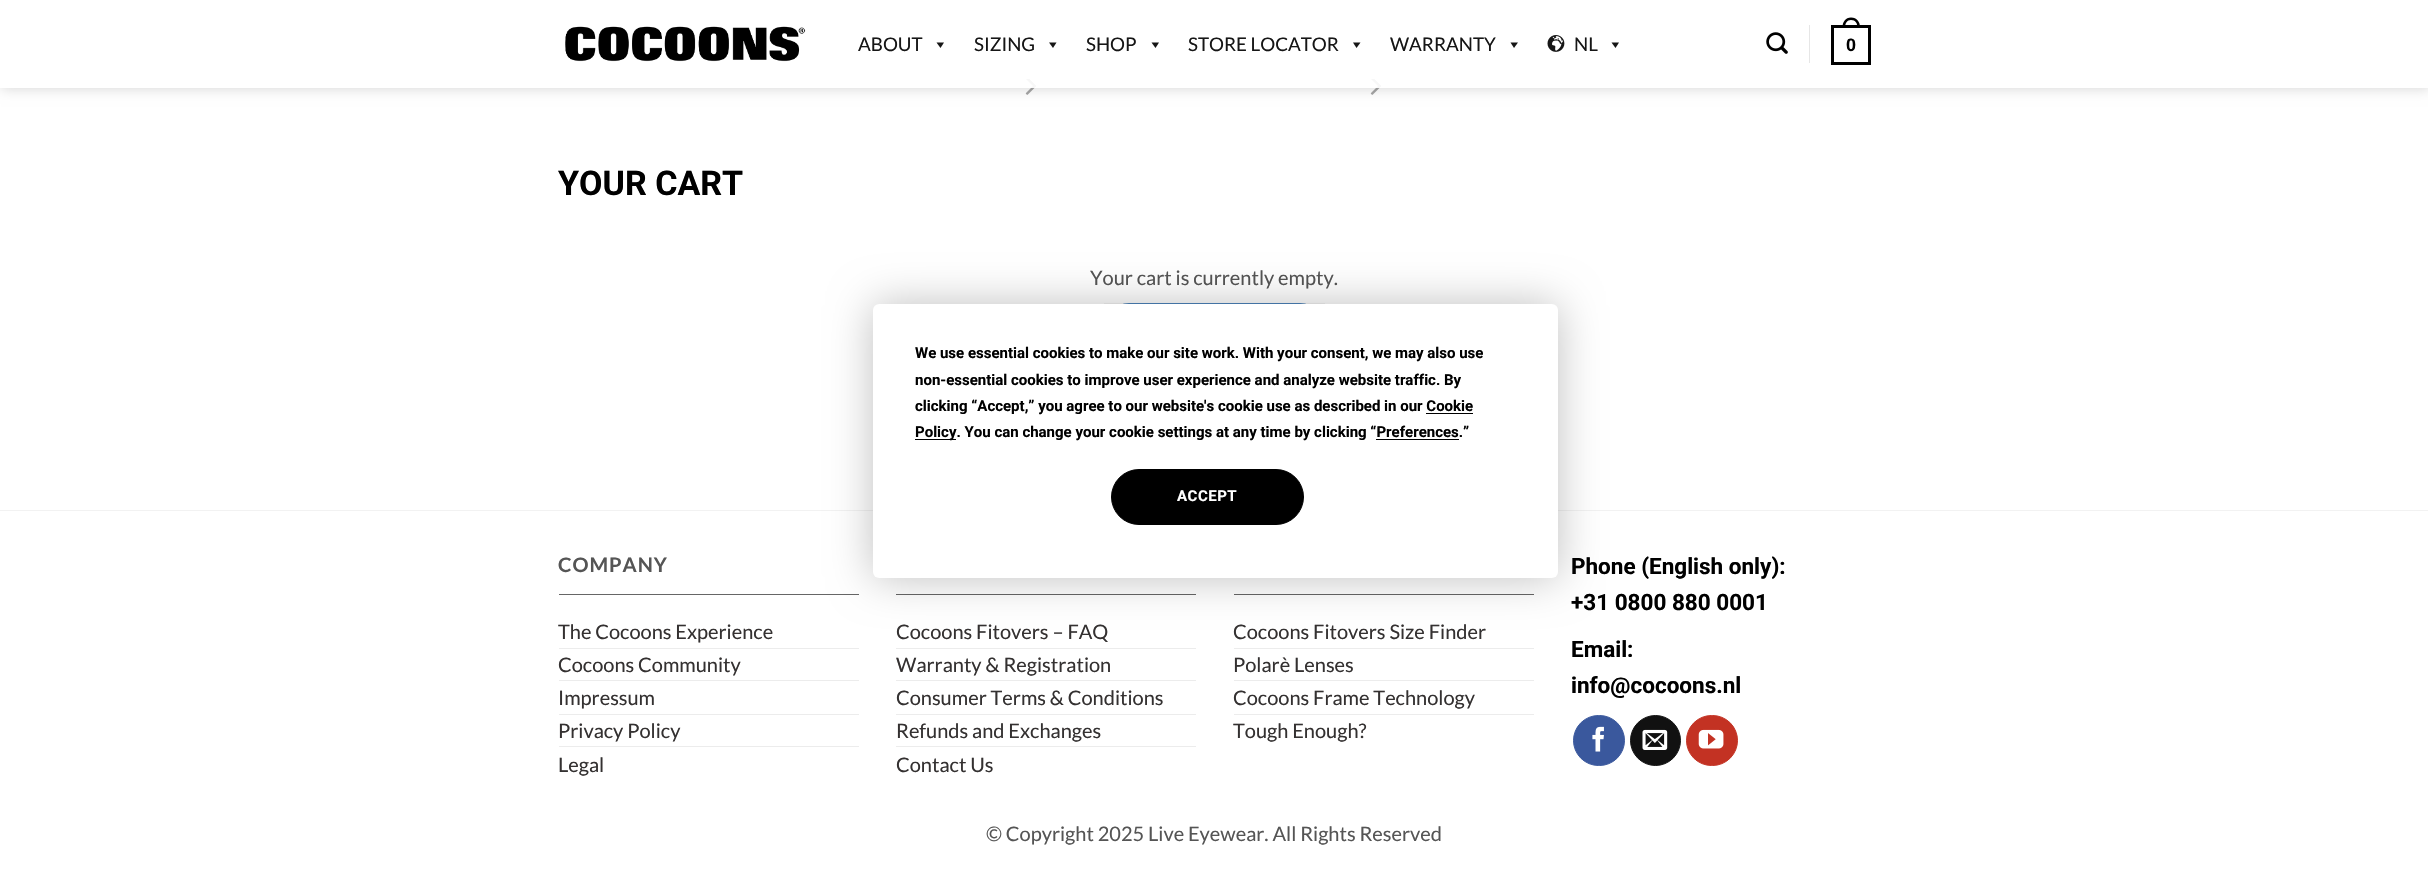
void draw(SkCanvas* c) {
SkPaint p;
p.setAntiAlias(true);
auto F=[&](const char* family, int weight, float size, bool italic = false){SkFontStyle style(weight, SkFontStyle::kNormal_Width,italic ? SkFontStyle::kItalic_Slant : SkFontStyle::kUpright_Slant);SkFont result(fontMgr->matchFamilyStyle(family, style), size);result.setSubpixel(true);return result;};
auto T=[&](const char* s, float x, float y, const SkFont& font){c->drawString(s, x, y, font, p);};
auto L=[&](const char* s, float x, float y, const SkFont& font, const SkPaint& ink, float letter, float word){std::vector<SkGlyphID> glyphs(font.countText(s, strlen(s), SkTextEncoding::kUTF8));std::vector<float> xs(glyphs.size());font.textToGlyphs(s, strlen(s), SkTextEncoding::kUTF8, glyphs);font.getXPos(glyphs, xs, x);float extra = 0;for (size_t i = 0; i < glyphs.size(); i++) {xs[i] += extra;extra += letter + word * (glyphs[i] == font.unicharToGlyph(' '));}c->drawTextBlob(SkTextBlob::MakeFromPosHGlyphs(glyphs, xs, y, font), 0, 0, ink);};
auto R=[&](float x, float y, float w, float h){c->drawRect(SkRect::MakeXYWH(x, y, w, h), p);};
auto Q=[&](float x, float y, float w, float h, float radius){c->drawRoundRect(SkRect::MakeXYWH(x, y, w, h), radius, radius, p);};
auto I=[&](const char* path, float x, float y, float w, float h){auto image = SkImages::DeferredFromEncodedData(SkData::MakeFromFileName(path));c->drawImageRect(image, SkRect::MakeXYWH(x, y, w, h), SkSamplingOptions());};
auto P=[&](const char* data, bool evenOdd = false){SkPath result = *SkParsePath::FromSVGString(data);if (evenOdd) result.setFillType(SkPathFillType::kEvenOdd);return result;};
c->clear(0xffffffff);
I("4.png",1025,79,11,16);
I("4.png",1370,79,11,16);
c->save();
c->clipPath(P("M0 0h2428v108h-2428zm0 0h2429v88h-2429z",true),true);
p.setColor(0x26000000);
p.setMaskFilter(SkMaskFilter::MakeBlur(kNormal_SkBlurStyle, 6));
c->drawRect(SkRect::MakeXYWH(1,1,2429,88),p);
p.setMaskFilter(nullptr);
c->restore();
I("1.png",565,26,241,36);
auto f1 = F("Lato",400,18.75);
p.setColor(0xff161616);
T("ABOUT",858,51,f1);
c->drawPath(P("M944 42.5l-3.5 5.5l-4-5.5z"),p);
T("SIZING",974,51,f1);
c->drawPath(P("M1056.5 42.5l-3.5 5.5l-4-5.5z"),p);
T("SHOP",1086,51,f1);
c->drawPath(P("M1159 42.5l-3.5 5.5l-4-5.5z"),p);
T("STORE LOCATOR",1188,51,f1);
c->drawPath(P("M1360.5 42.5l-4 5.5l-3.5-5.5z"),p);
T("WARRANTY",1390,51,f1);
c->drawPath(P("M1518 42.5l-4 5.5l-3.5-5.5z"),p);
I("2.png",1547,35,18,17);
T("NL",1574,51,f1);
c->drawPath(P("M1619 42.5l-3.5 5.5l-4-5.5z"),p);
I("3.png",1766,32,22,22);
p.setColor(0xffe6e6e6);
R(1809,25,1,38);
p.setStroke(true);
p.setStrokeWidth(3);
p.setColor(0xff000000);
c->drawRect(SkRect::MakeXYWH(1832.5,26.5,37,37),p);
p.setStroke(false);
c->drawPath(P("M1851 17.5c6 0 9 4.5 9 10h-17.5c0-5.5 3-10 8.5-10zm0 2.5c4.5 0 6.5 3.5 6.5 7.5h-12.5c0-4 2-7.5 6-7.5z",true),p);
auto f2 = F("Liberation Sans",700,18);
T("0",1846,51,f2);
p.setColor(0xe6ffffff);
R(0,79,2428,9);
auto f3 = F("Roboto",700,34);
p.setColor(0xff000000);
T("YOUR CART",558,195,f3);
auto f4 = F("Lato",400,20);
p.setColor(0xff555555);
T("Your cart is currently empty.",1090,285,f4);
p.setColor(0xff518bc5);
Q(1104,303,221,50,25);
p.setStroke(true);
p.setStrokeWidth(1);
p.setColor(0x0d000000);
c->drawRect(SkRect::MakeXYWH(1104.5,303.5,220,49),p);
p.setStroke(false);
p.setColor(0xfff2f2f2);
R(0,510,2428,1);
auto f5 = F("Lato",700,20);
p.setColor(0xff555555);
L("COMPANY",558,572,f5,p,1,0);
p.setColor(0xff666666);
R(559,594,300,1);
p.setColor(0xff343131);
T("The Cocoons Experience",558,639,f4);
p.setColor(0xffececec);
R(559,648,300,1);
p.setColor(0xff343131);
T("Cocoons Community",558,672,f4);
p.setColor(0xffececec);
R(559,680,300,1);
p.setColor(0xff343131);
T("Impressum",558,705,f4);
p.setColor(0xffececec);
R(559,714,300,1);
p.setColor(0xff343131);
T("Privacy Policy",558,738,f4);
p.setColor(0xffececec);
R(559,746,300,1);
p.setColor(0xff343131);
T("Legal",558,772,f4);
p.setColor(0xff666666);
R(896,594,300,1);
p.setColor(0xff343131);
T("Cocoons Fitovers – FAQ",896,639,f4);
p.setColor(0xffececec);
R(896,648,300,1);
p.setColor(0xff343131);
T("Warranty & Registration",896,672,f4);
p.setColor(0xffececec);
R(896,680,300,1);
p.setColor(0xff343131);
T("Consumer Terms & Conditions",896,705,f4);
p.setColor(0xffececec);
R(896,714,300,1);
p.setColor(0xff343131);
T("Refunds and Exchanges",896,738,f4);
p.setColor(0xffececec);
R(896,746,300,1);
p.setColor(0xff343131);
T("Contact Us",896,772,f4);
p.setColor(0xff666666);
R(1234,594,300,1);
p.setColor(0xff343131);
T("Cocoons Fitovers Size Finder",1233,639,f4);
p.setColor(0xffececec);
R(1234,648,300,1);
p.setColor(0xff343131);
T("Polarè Lenses",1233,672,f4);
p.setColor(0xffececec);
R(1234,680,300,1);
p.setColor(0xff343131);
T("Cocoons Frame Technology",1233,705,f4);
p.setColor(0xffececec);
R(1234,714,300,1);
p.setColor(0xff343131);
T("Tough Enough?",1233,738,f4);
auto f6 = F("Roboto",700,22.5);
p.setColor(0xff000000);
T("Phone (English only):",1571,574,f6);
T("+31 0800 880 0001",1571,610,f6);
T("Email:",1571,657,f6);
T("info@cocoons.nl",1571,693,f6);
p.setColor(0xff3a589d);
c->drawRoundRect(SkRect::MakeXYWH(1573.5,715.5,51,50),25,25,p);
p.setStroke(true);
c->drawRoundRect(SkRect::MakeXYWH(1573.5,715.5,51,50),25,25,p);
I("5.png",1592,726,12,26);
p.setStroke(false);
p.setColor(0xff111111);
c->drawCircle(1655.5,740.5,25,p);
p.setStroke(true);
c->drawCircle(1655.5,740.5,25,p);
I("6.png",1642,729,26,21);
p.setStroke(false);
p.setColor(0xffc33223);
c->drawRoundRect(SkRect::MakeXYWH(1686.5,715.5,51,50),25,25,p);
p.setStroke(true);
c->drawRoundRect(SkRect::MakeXYWH(1686.5,715.5,51,50),25,25,p);
I("7.png",1698,729,26,20);
p.setStroke(false);
p.setColor(0xff555555);
T("© Copyright 2025 Live Eyewear. All Rights Reserved",986,841,f4);
p.setColor(0x40000000);
p.setMaskFilter(SkMaskFilter::MakeBlur(kNormal_SkBlurStyle, 22));
c->drawRoundRect(SkRect::MakeXYWH(873,304,685,274),6,6,p);
p.setMaskFilter(nullptr);
p.setColor(0xffffffff);
Q(873,304,685,274,6);
auto f7 = F("Roboto",700,15);
p.setColor(0xff000000);
T("We use essential cookies to make our site work. With your consent, we may also use",915,358,f7);
T("non-essential cookies to improve user experience and analyze website traffic. By",915,385,f7);
T("clicking “Accept,” you agree to our website's cookie use as described in our Cookie",915,411,f7);
R(915,439,41,1);
T("Policy. You can change your cookie settings at any time by clicking “Preferences.”",915,437,f7);
R(1426,413,47,1);
R(1376,439,83,1);
c->drawRoundRect(SkRect::MakeXYWH(1111.5,469.5,192,55),27.5,27.5,p);
p.setStroke(true);
c->drawRoundRect(SkRect::MakeXYWH(1111.5,469.5,192,55),27.5,27.5,p);
p.setStroke(false);
p.setColor(0xffffffff);
L("ACCEPT",1177,501,f7,p,.5,0);
}
